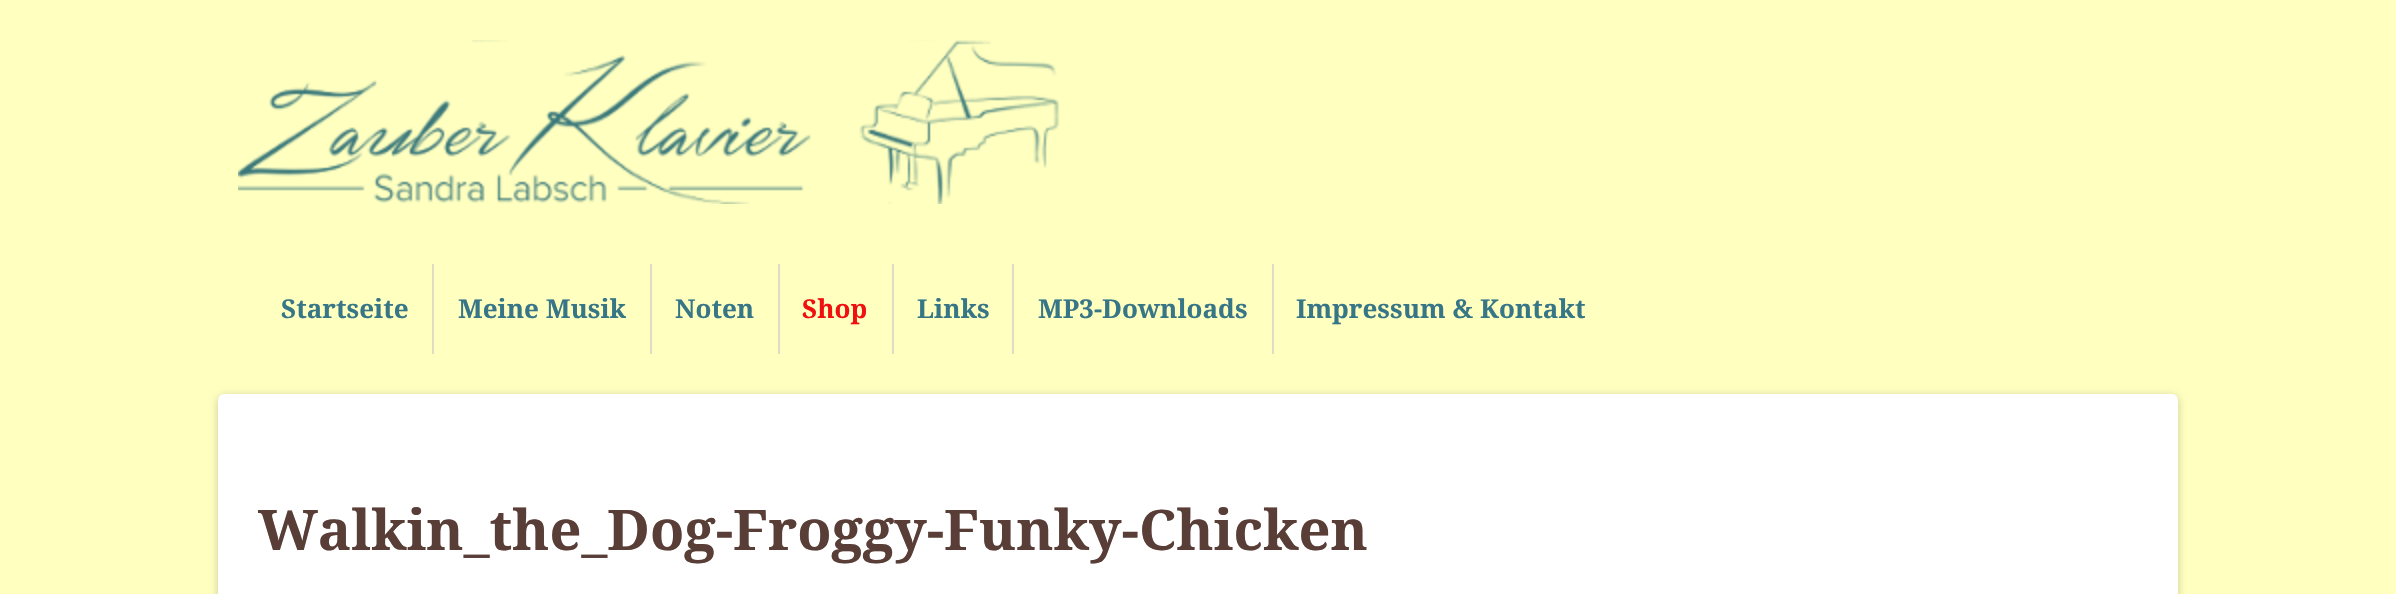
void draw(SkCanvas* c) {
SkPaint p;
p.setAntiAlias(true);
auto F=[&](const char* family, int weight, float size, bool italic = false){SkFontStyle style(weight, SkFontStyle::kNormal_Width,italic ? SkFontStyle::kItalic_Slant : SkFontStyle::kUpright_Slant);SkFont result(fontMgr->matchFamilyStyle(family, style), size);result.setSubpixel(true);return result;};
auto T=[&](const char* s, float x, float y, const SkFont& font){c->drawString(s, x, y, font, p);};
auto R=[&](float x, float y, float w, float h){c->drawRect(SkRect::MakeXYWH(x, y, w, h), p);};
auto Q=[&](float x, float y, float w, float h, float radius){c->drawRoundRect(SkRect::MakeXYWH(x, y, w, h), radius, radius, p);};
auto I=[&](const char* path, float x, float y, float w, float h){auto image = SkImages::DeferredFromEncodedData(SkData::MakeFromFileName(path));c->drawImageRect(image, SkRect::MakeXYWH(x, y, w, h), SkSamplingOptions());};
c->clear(0xffffffc0);
I("1.png",238,40,822,164);
auto f1 = F("Droid Serif",700,26);
p.setColor(0xff377687);
T("Startseite",281,318,f1);
p.setColor(0xffdedcc3);
R(432,264,2,90);
p.setColor(0xff377687);
T("Meine Musik",458,318,f1);
p.setColor(0xffdedcc3);
R(650,264,2,90);
p.setColor(0xff377687);
T("Noten",675,318,f1);
p.setColor(0xffdedcc3);
R(778,264,2,90);
p.setColor(0xfff11010);
T("Shop",802,318,f1);
p.setColor(0xffdedcc3);
R(892,264,2,90);
p.setColor(0xff377687);
T("Links",917,318,f1);
p.setColor(0xffdedcc3);
R(1012,264,2,90);
p.setColor(0xff377687);
T("MP3-Downloads",1038,318,f1);
p.setColor(0xffdedcc3);
R(1272,264,2,90);
p.setColor(0xff377687);
T("Impressum & Kontakt",1296,318,f1);
p.setColor(0x33000000);
p.setMaskFilter(SkMaskFilter::MakeBlur(kNormal_SkBlurStyle, 4));
c->drawRoundRect(SkRect::MakeXYWH(218,396,1960,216),6,6,p);
p.setMaskFilter(nullptr);
p.setColor(0xffffffff);
Q(218,394,1960,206,6);
auto f2 = F("Droid Serif",700,56);
p.setColor(0xff593e37);
T("Walkin_the_Dog-Froggy-Funky-Chicken",258,550,f2);
}
